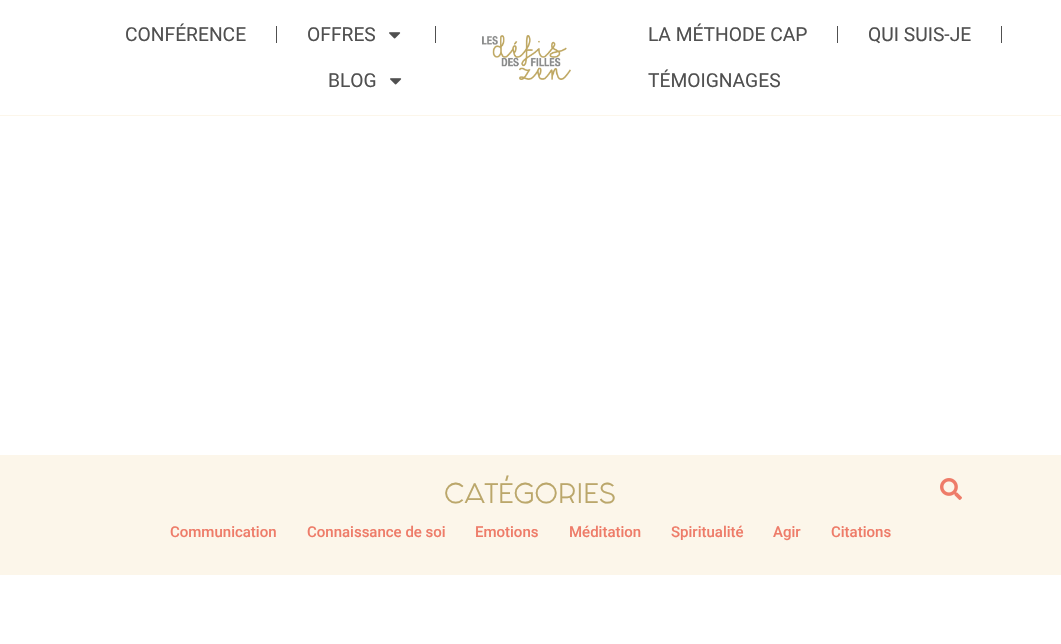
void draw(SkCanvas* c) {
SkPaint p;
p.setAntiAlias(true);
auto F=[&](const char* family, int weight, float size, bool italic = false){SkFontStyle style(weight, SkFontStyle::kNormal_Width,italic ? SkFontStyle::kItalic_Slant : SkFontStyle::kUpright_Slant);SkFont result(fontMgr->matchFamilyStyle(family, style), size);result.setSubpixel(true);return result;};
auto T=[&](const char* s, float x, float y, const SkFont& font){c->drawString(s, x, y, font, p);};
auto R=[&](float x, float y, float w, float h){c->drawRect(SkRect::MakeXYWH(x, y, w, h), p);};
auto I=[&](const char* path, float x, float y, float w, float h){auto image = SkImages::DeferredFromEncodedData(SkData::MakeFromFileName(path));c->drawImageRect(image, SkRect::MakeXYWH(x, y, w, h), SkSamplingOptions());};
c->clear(0xffffffff);
p.setColor(0xfffcf6ea);
R(0,115,1061,1);
auto f1 = F("Roboto",400,19.25);
p.setColor(0xff505050);
T("CONFÉRENCE",125,41,f1);
R(276,26,1,17);
T("OFFRES",307,41,f1);
I("1.png",389,32,12,7);
R(435,26,1,17);
T("BLOG",328,87,f1);
I("1.png",390,78,12,7);
I("2.png",482,35,89,45);
T("LA MÉTHODE CAP",648,41,f1);
R(837,26,1,17);
T("QUI SUIS-JE",868,41,f1);
R(1001,26,1,17);
T("TÉMOIGNAGES",648,87,f1);
p.setColor(0xfffcf6ea);
R(0,455,1061,120);
auto f2 = F("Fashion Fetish",400,24);
p.setColor(0xffbba76b);
T("CATÉGORIES",444,503,f2);
I("3.png",940,478,22,22);
auto f3 = F("Roboto",500,15);
p.setColor(0xffee7c69);
T("Communication",170,537,f3);
T("Connaissance de soi",307,537,f3);
T("Emotions",475,537,f3);
T("Méditation",569,537,f3);
T("Spiritualité",671,537,f3);
T("Agir",773,537,f3);
T("Citations",831,537,f3);
}
